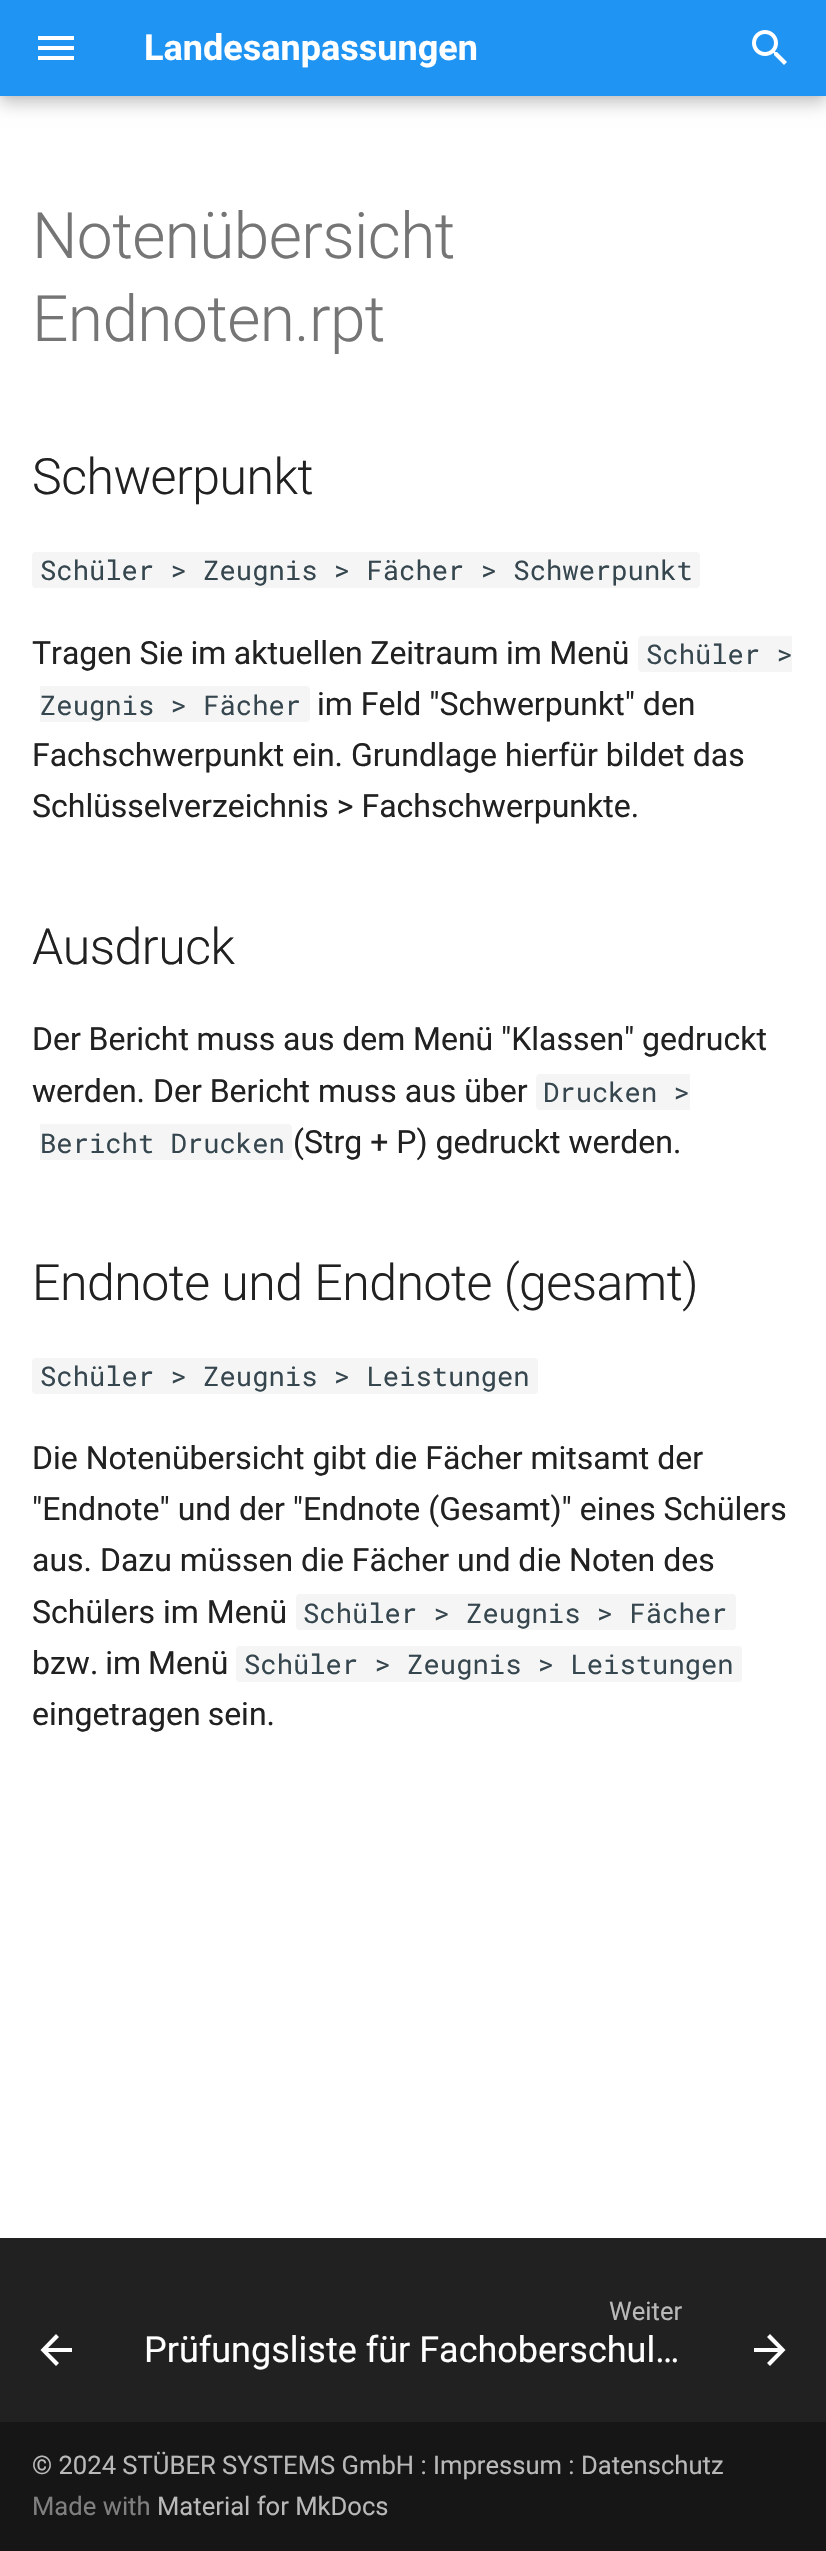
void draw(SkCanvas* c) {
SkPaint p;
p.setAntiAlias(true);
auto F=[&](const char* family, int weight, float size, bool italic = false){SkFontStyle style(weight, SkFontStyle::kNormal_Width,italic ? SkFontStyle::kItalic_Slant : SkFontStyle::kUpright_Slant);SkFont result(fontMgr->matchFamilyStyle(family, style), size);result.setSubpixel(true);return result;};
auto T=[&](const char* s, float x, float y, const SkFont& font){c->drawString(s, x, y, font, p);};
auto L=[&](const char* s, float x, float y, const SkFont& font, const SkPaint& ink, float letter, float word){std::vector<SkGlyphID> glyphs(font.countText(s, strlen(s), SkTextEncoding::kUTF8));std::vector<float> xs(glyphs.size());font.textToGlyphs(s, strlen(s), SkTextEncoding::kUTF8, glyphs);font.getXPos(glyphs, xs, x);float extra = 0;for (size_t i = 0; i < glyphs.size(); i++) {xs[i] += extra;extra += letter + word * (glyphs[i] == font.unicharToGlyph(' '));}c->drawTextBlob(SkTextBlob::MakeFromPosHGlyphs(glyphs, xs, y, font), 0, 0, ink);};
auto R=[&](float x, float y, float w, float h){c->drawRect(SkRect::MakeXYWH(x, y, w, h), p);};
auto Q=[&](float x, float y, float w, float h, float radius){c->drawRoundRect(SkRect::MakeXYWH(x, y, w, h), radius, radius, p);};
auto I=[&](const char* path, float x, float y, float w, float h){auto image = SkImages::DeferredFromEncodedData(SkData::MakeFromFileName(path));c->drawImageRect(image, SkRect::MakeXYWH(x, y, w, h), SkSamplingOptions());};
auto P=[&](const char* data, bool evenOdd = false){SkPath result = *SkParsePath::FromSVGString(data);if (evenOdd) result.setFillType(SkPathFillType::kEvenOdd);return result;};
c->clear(0xffffffff);
p.setColor(0x33000000);
p.setMaskFilter(SkMaskFilter::MakeBlur(kNormal_SkBlurStyle, 8));
c->drawRect(SkRect::MakeXYWH(0,8,826,96),p);
p.setMaskFilter(nullptr);
p.setColor(0x1a000000);
p.setMaskFilter(SkMaskFilter::MakeBlur(kNormal_SkBlurStyle, 4));
c->drawRect(SkRect::MakeXYWH(0,0,826,96),p);
p.setMaskFilter(nullptr);
p.setColor(0xff2094f3);
R(0,0,826,96);
p.setColor(0xffffffff);
c->drawPath(P("M38 36h36v4h-36zm0 10h36v4h-36zm0 10h36v4h-36z"),p);
auto f1 = F("Roboto",700,36);
T("Landesanpassungen",144,60,f1);
I("1.png",752,30,35,35);
auto f2 = F("Roboto",300,64);
p.setColor(0xff757575);
L("Notenübersicht",32,258,f2,p,-.6,0);
L("Endnoten.rpt",32,341,f2,p,-.6,0);
auto f3 = F("Roboto",300,50);
p.setColor(0xff212121);
L("Schwerpunkt",32,494,f3,p,-.5,0);
p.setColor(0xfff5f5f5);
Q(32,552,668,36,4);
auto f4 = F("Roboto Mono",400,27.2);
p.setColor(0xff36464e);
T("Schüler > Zeugnis > Fächer > Schwerpunkt",40,580,f4);
auto f5 = F("Roboto",400,32);
p.setColor(0xff212121);
L("Tragen Sie im aktuellen Zeitraum im Menü",32,664,f5,p,0,-.5);
p.setColor(0xfff5f5f5);
c->drawPath(P("M642 636h150v36h-150c-2 0-4-2-4-4v-28c0-2 2-4 4-4z"),p);
p.setColor(0xff36464e);
T("Schüler >",646,664,f4);
p.setColor(0xfff5f5f5);
c->drawPath(P("M40 686h266c2 0 4 2 4 4v28c0 2-2 4-4 4h-266z"),p);
p.setColor(0xff36464e);
T("Zeugnis > Fächer",40,715,f4);
p.setColor(0xff212121);
T("im Feld \"Schwerpunkt\" den",317,715,f5);
T("Fachschwerpunkt ein. Grundlage hierfür bildet das",32,766,f5);
T("Schlüsselverzeichnis > Fachschwerpunkte.",32,817,f5);
L("Ausdruck",32,964,f3,p,-.5,0);
L("Der Bericht muss aus dem Menü \"Klassen\" gedruckt",32,1050,f5,p,0,-.25);
T("werden. Der Bericht muss aus über",32,1102,f5);
p.setColor(0xfff5f5f5);
c->drawPath(P("M540 1074h150v36h-150c-2 0-4-2-4-4v-28c0-2 2-4 4-4z"),p);
p.setColor(0xff36464e);
T("Drucken >",543,1102,f4);
p.setColor(0xfff5f5f5);
c->drawPath(P("M40 1124h248c2 0 4 2 4 4v28c0 2-2 4-4 4h-248z"),p);
p.setColor(0xff36464e);
T("Bericht Drucken",40,1153,f4);
p.setColor(0xff212121);
T("(Strg + P) gedruckt werden.",293,1153,f5);
L("Endnote und Endnote (gesamt)",32,1300,f3,p,-.5,0);
p.setColor(0xfff5f5f5);
Q(32,1358,506,36,4);
p.setColor(0xff36464e);
T("Schüler > Zeugnis > Leistungen",40,1386,f4);
p.setColor(0xff212121);
T("Die Notenübersicht gibt die Fächer mitsamt der",32,1469,f5);
T("\"Endnote\" und der \"Endnote (Gesamt)\" eines Schülers",32,1520,f5);
T("aus. Dazu müssen die Fächer und die Noten des",32,1571,f5);
T("Schülers im Menü",32,1623,f5);
p.setColor(0xfff5f5f5);
Q(296,1594,440,36,4);
p.setColor(0xff36464e);
T("Schüler > Zeugnis > Fächer",303,1623,f4);
p.setColor(0xff212121);
L("bzw. im Menü",32,1674,f5,p,0,-1);
p.setColor(0xfff5f5f5);
Q(236,1646,506,36,4);
p.setColor(0xff36464e);
T("Schüler > Zeugnis > Leistungen",244,1674,f4);
p.setColor(0xff212121);
L("eingetragen sein.",32,1725,f5,p,0,-1);
R(0,2238,826,184);
p.setColor(0xffffffff);
c->drawPath(P("M72 2348v4h-24l11 11l-3 3l-15.5-16l15.5-16l3 3l-11 11z"),p);
auto f6 = F("Roboto",400,25.6);
p.setColor(0xffb9b9b9);
T("Weiter",609,2320,f6);
auto f7 = F("Roboto",400,36);
p.setColor(0xffffffff);
T("Prüfungsliste für Fachoberschul…",144,2362,f7);
c->drawPath(P("M754 2348v4h24l-11 11l3 3l15.5-16l-15.5-16l-3 3l11 11z"),p);
p.setColor(0xff161616);
R(0,2422,826,129);
p.setColor(0xffb9b9b9);
T("© 2024 STÜBER SYSTEMS GmbH : Impressum : Datenschutz",32,2474,f6);
p.setColor(0xff7f7f7f);
T("Made with",32,2515,f6);
p.setColor(0xffb9b9b9);
T("Material for MkDocs",157,2515,f6);
}
